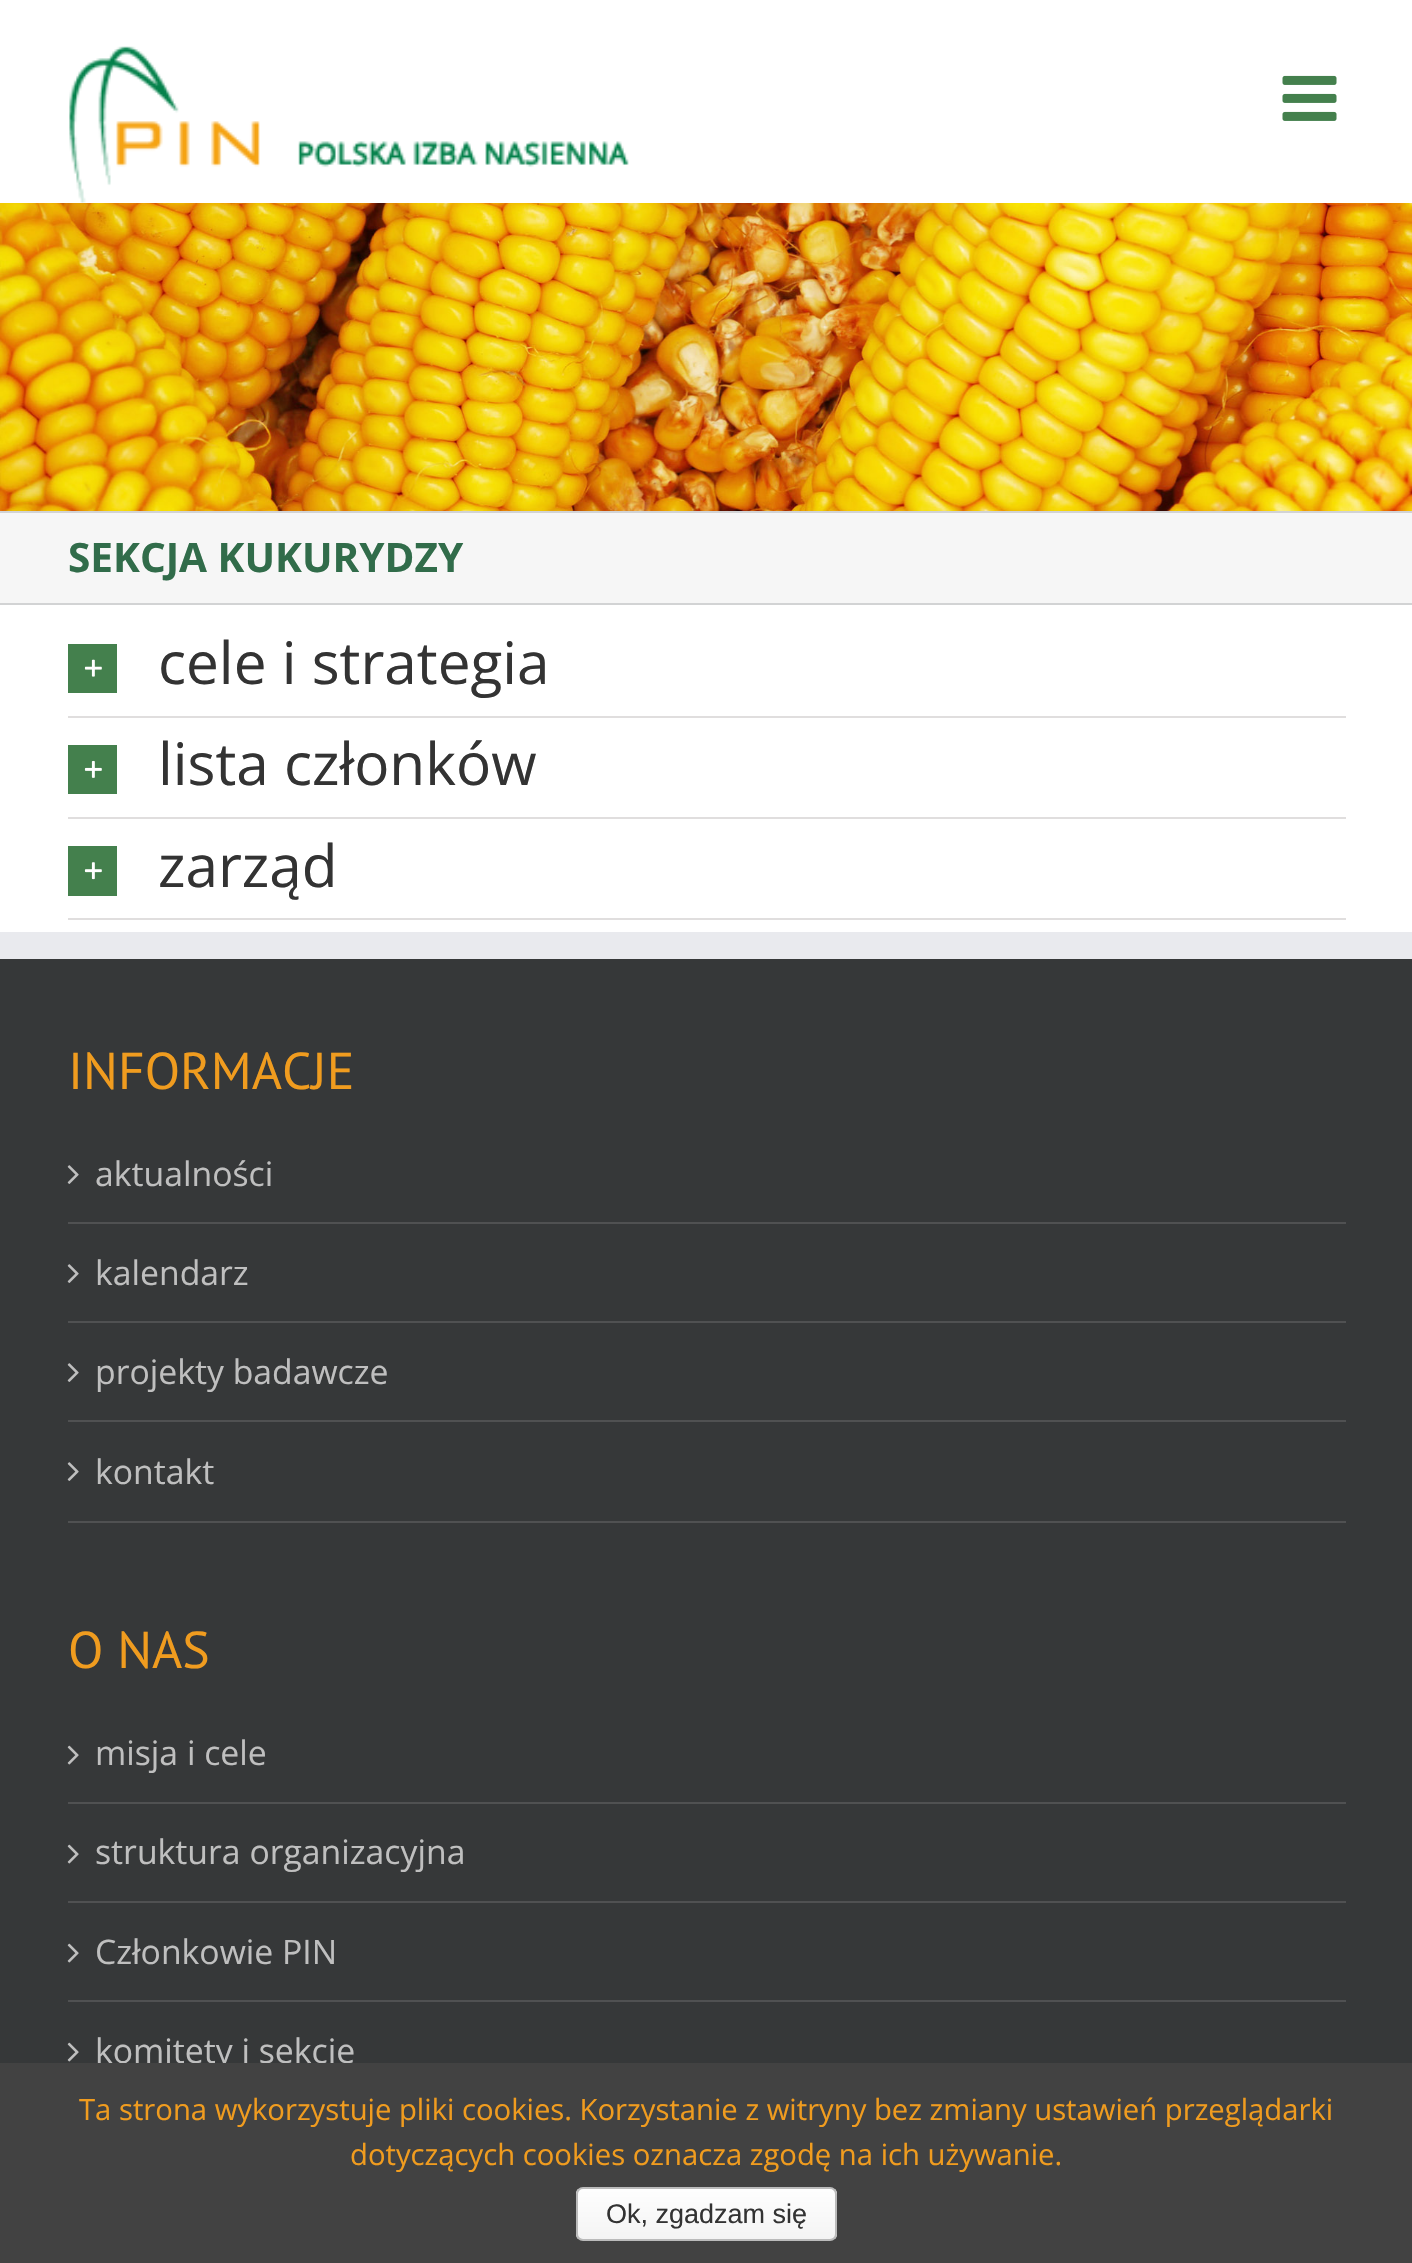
void draw(SkCanvas* c) {
SkPaint p;
p.setAntiAlias(true);
auto F=[&](const char* family, int weight, float size, bool italic = false){SkFontStyle style(weight, SkFontStyle::kNormal_Width,italic ? SkFontStyle::kItalic_Slant : SkFontStyle::kUpright_Slant);SkFont result(fontMgr->matchFamilyStyle(family, style), size);result.setSubpixel(true);return result;};
auto T=[&](const char* s, float x, float y, const SkFont& font){c->drawString(s, x, y, font, p);};
auto R=[&](float x, float y, float w, float h){c->drawRect(SkRect::MakeXYWH(x, y, w, h), p);};
auto I=[&](const char* path, float x, float y, float w, float h){auto image = SkImages::DeferredFromEncodedData(SkData::MakeFromFileName(path));c->drawImageRect(image, SkRect::MakeXYWH(x, y, w, h), SkSamplingOptions());};
auto P=[&](const char* data, bool evenOdd = false){SkPath result = *SkParsePath::FromSVGString(data);if (evenOdd) result.setFillType(SkPathFillType::kEvenOdd);return result;};
c->clear(0xffffffff);
I("1.png",69,46,560,157);
I("2.png",1282,75,55,46);
I("3.png",0,203,1412,308);
p.setColor(0xfff6f6f6);
R(0,513,1412,90);
p.setColor(0xffd2d3d4);
R(0,511,1412,2);
R(0,603,1412,2);
auto f1 = F("Open Sans",700,40.5);
p.setColor(0xff316c4a);
T("SEKCJA KUKURYDZY",68,572,f1);
p.setColor(0xffe0dede);
R(68,716,1278,2);
p.setColor(0xff44804d);
R(68,644,49,49);
I("4.png",84,659,18,18);
auto f2 = F("Open Sans",400,58.5);
p.setColor(0xff333333);
T("cele i strategia",158,684,f2);
p.setColor(0xffe0dede);
R(68,817,1278,2);
p.setColor(0xff44804d);
R(68,745,49,49);
I("5.png",84,760,18,18);
p.setColor(0xff333333);
T("lista członków",158,785,f2);
p.setColor(0xffe0dede);
R(68,918,1278,2);
p.setColor(0xff44804d);
R(68,846,49,50);
I("6.png",84,862,18,18);
p.setColor(0xff333333);
T("zarząd",158,887,f2);
p.setColor(0xff363839);
R(0,959,1412,1104);
p.setColor(0xffe9eaee);
R(0,932,1412,27);
auto f3 = F("PT Sans",400,51.75);
p.setColor(0xfff09c1f);
T("INFORMACJE",68,1089,f3);
p.setColor(0xff505152);
R(68,1222,1278,2);
I("7.png",67,1165,12,19);
auto f4 = F("Open Sans",400,33.75);
p.setColor(0xffbfbfbf);
T("aktualności",95,1186,f4);
p.setColor(0xff505152);
R(68,1321,1278,2);
I("7.png",67,1264,12,19);
p.setColor(0xffbfbfbf);
T("kalendarz",95,1285,f4);
p.setColor(0xff505152);
R(68,1420,1278,2);
I("7.png",67,1363,12,19);
p.setColor(0xffbfbfbf);
T("projekty badawcze",95,1384,f4);
p.setColor(0xff505152);
R(68,1521,1278,2);
I("7.png",67,1462,12,19);
p.setColor(0xffbfbfbf);
T("kontakt",95,1484,f4);
p.setColor(0xfff09c1f);
T("O NAS",68,1668,f3);
p.setColor(0xff505152);
R(68,1802,1278,2);
I("8.png",67,1745,12,20);
p.setColor(0xffbfbfbf);
T("misja i cele",95,1765,f4);
p.setColor(0xff505152);
R(68,1901,1278,2);
I("8.png",67,1844,12,20);
p.setColor(0xffbfbfbf);
T("struktura organizacyjna",95,1864,f4);
p.setColor(0xff505152);
R(68,2000,1278,2);
I("8.png",67,1943,12,20);
p.setColor(0xffbfbfbf);
T("Członkowie PIN",95,1964,f4);
I("8.png",67,2042,12,20);
T("komitety i sekcje",95,2063,f4);
p.setColor(0xff424242);
R(0,2063,1412,200);
auto f5 = F("Open Sans",400,29.25);
p.setColor(0xfff09c1f);
T("Ta strona wykorzystuje pliki cookies. Korzystanie z witryny bez zmiany ustawień przeglądarki",79,2120,f5);
T("dotyczących cookies oznacza zgodę na ich używanie.",350,2165,f5);
c->save();
c->clipPath(P("M583 2187h247c4 0 7 3 7 7v40c0 4-3 7-7 7h-247c-4 0-7-3-7-7v-40c0-4 3-7 7-7z"),true);
{
const SkColor colors[] = {0xfffefefe,0xfff4f4f4};
const float stops[] = {0,1};
const SkPoint ends[] = {{707,2189}, {707,2239}};
p.setShader(SkGradientShader::MakeLinear(ends, colors, stops, 2, SkTileMode::kClamp));
p.setAlpha(255);
}
R(576,2189,261,50);
c->restore();
p.setStroke(true);
p.setStrokeWidth(2);
p.setShader(nullptr);
p.setColor(0xffbbbbbb);
c->drawRoundRect(SkRect::MakeXYWH(577,2188,259,52),6,6,p);
auto f6 = F("Liberation Sans",400,27);
p.setStroke(false);
p.setColor(0xff333333);
T("Ok, zgadzam się",606,2223,f6);
}
